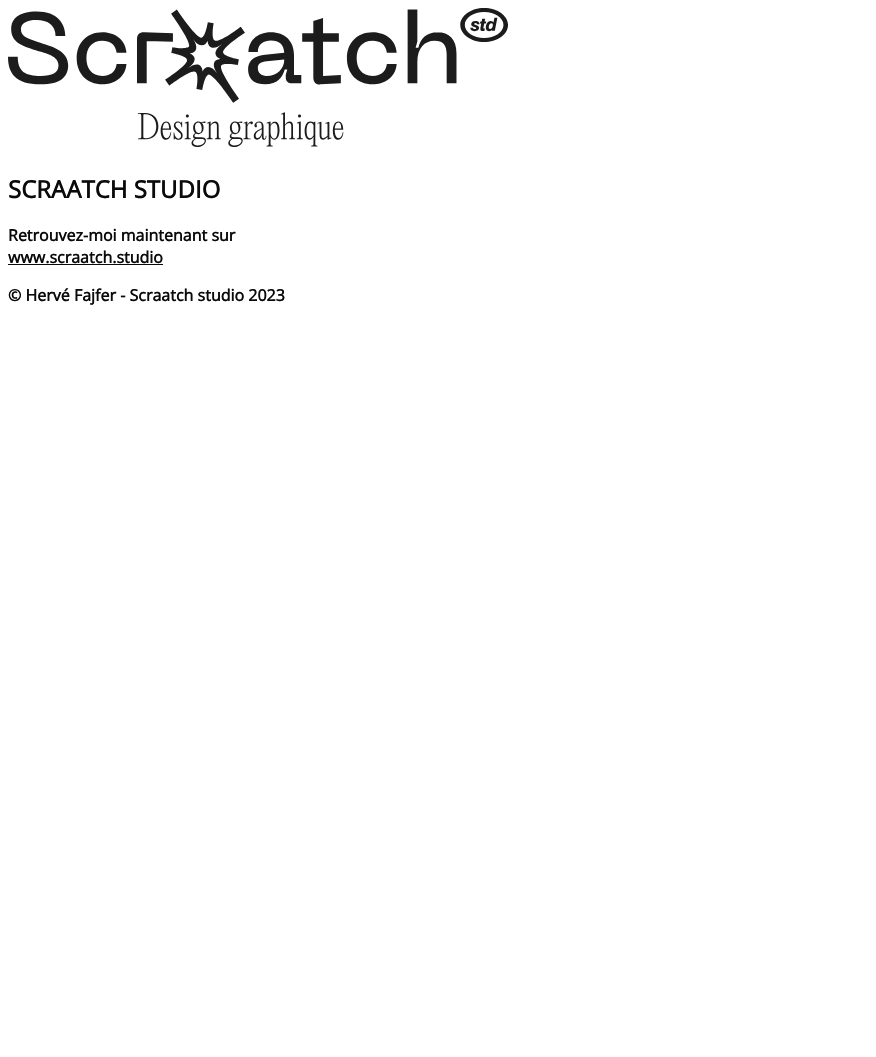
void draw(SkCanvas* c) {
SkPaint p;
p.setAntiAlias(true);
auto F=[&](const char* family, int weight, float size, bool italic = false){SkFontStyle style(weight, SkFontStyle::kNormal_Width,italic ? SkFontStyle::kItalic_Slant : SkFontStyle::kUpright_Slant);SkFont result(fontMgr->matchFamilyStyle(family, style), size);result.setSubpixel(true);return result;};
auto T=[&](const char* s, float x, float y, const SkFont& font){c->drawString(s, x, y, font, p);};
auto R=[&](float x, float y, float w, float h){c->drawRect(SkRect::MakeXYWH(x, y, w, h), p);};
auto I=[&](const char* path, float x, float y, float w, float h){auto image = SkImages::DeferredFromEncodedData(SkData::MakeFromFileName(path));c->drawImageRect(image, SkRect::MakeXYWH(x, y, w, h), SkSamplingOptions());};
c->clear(0xffffffff);
I("1.png",8,8,500,139);
auto f1 = F("Open Sans",700,24);
p.setColor(0xff0a0a0a);
T("SCRAATCH STUDIO",8,198,f1);
auto f2 = F("Open Sans",700,16);
T("Retrouvez-moi maintenant sur",8,241,f2);
T("www.scraatch.studio",8,263,f2);
R(8,264,155,1);
T("© Hervé Fajfer - Scraatch studio 2023",8,301,f2);
}
